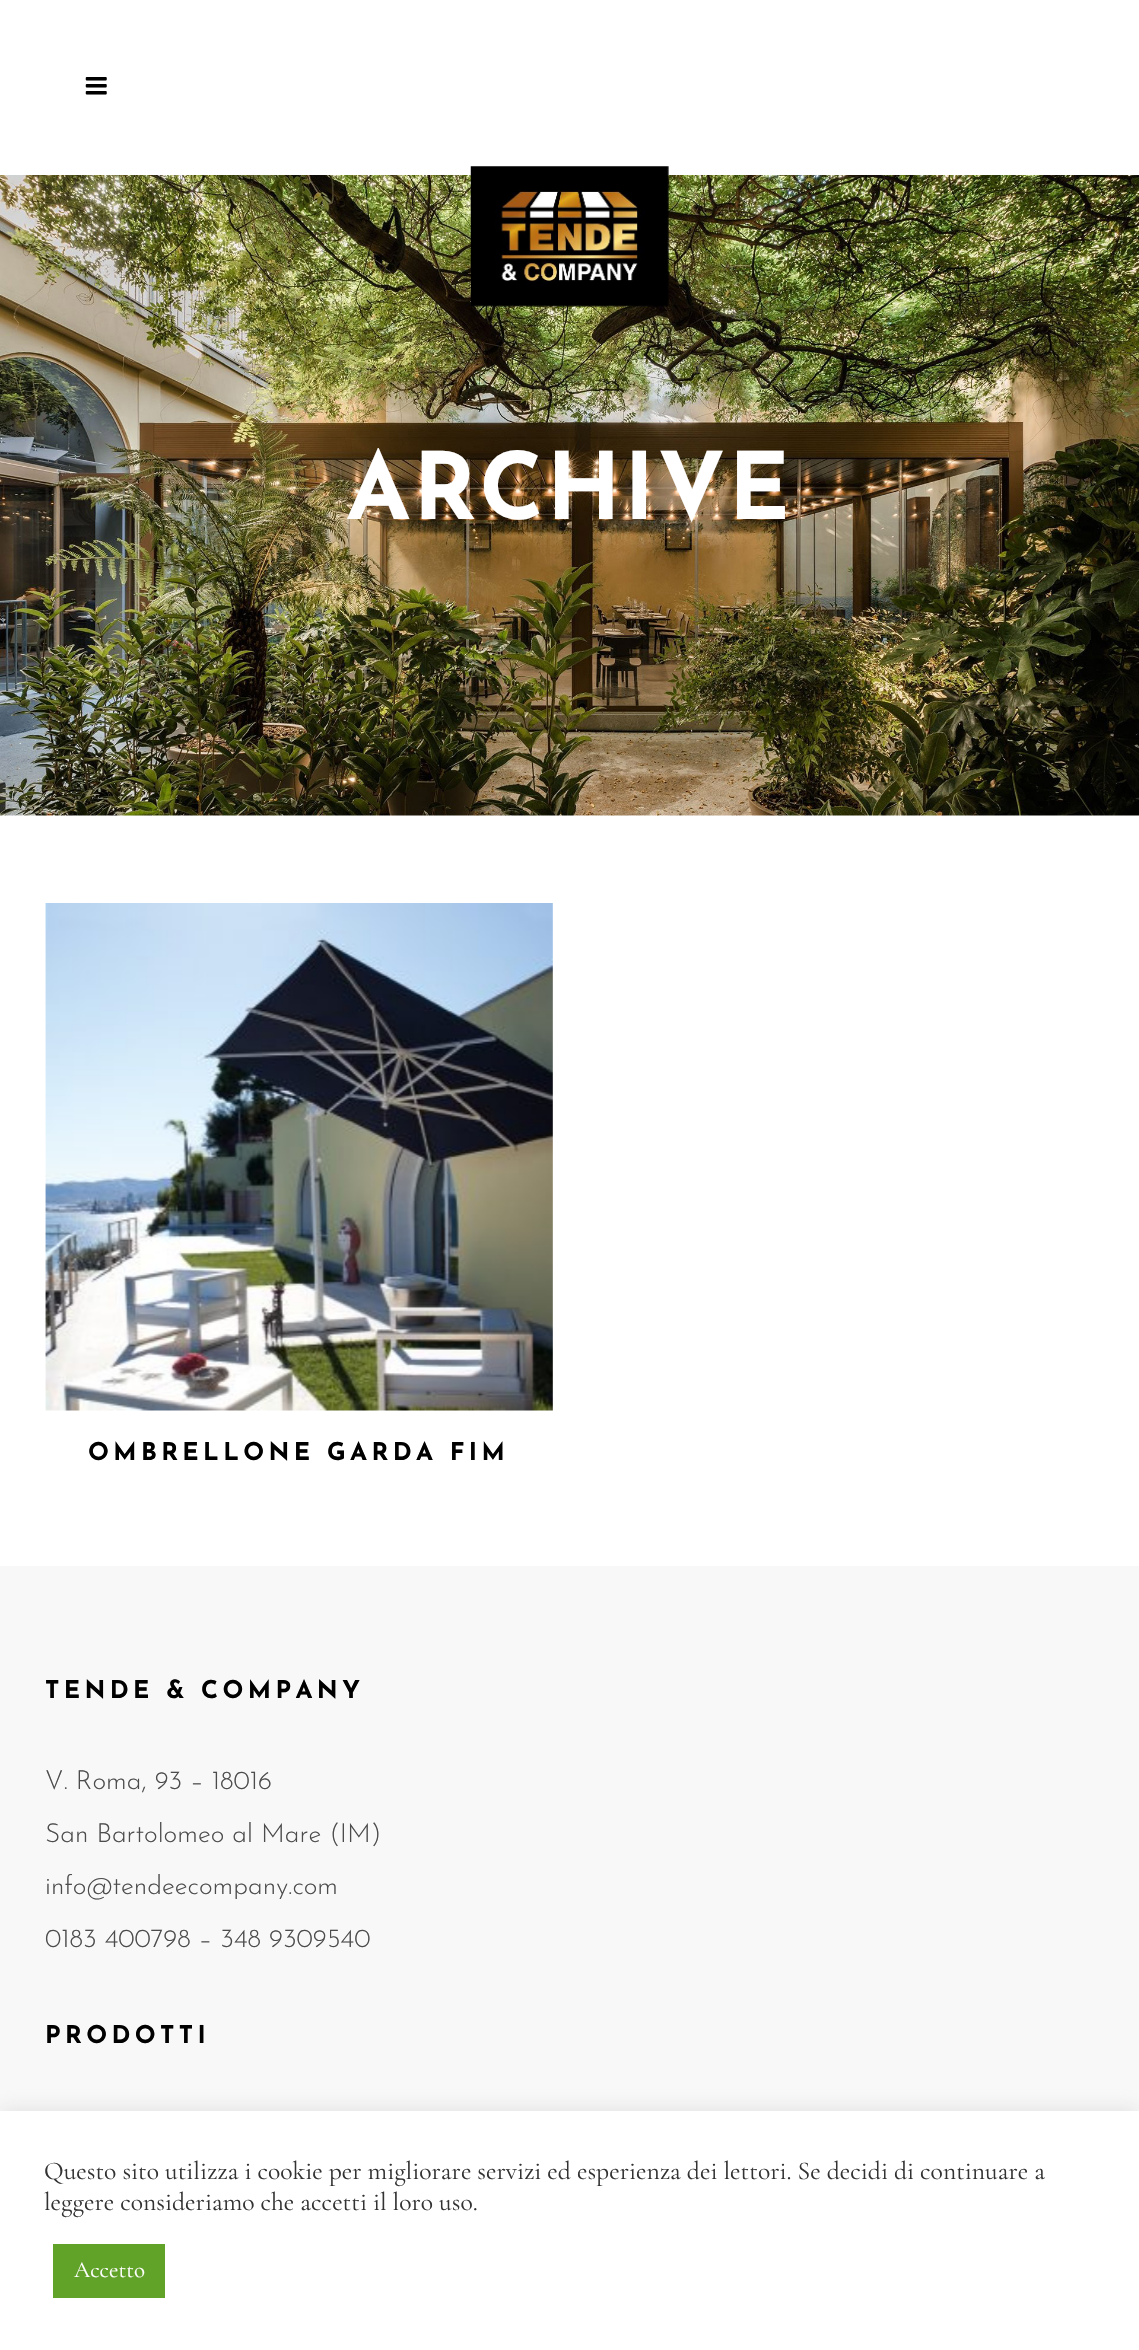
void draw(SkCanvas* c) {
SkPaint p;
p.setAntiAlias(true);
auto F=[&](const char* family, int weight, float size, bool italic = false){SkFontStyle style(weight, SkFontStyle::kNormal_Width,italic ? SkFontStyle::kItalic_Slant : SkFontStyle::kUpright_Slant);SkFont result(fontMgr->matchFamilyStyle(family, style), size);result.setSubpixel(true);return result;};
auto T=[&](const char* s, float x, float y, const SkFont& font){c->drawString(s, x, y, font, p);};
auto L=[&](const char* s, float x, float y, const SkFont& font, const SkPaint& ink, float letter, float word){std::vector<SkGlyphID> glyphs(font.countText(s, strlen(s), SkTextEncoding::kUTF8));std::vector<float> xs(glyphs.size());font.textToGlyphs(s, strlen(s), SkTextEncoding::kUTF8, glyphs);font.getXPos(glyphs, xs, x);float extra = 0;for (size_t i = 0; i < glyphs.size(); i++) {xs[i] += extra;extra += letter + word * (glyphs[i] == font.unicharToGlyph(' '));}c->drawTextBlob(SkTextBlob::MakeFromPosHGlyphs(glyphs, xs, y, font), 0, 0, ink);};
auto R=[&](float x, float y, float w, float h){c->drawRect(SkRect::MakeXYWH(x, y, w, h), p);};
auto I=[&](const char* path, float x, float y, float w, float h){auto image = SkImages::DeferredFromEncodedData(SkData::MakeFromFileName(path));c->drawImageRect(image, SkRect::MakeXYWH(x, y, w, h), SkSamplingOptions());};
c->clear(0xffffffff);
I("1.png",85,77,22,18);
I("3.png",0,175,1139,641);
I("2.png",470,166,199,141);
auto f1 = F("Josefin Sans",700,92.75);
p.setColor(0xffffffff);
L("ARCHIVE",346,519,f1,p,2.5,0);
I("4.png",45,903,508,508);
auto f2 = F("Josefin Sans",700,24.5);
p.setColor(0xff000000);
L("OMBRELLONE GARDA FIM",88,1460,f2,p,4.4,0);
p.setColor(0xfff8f8f8);
R(0,1566,1139,545);
p.setColor(0xff000000);
L("TENDE & COMPANY",45,1698,f2,p,4.4,0);
auto f3 = F("Josefin Sans",300,26.25);
p.setColor(0xff4c4c4c);
T("V. Roma, 93 – 18016",45,1789,f3);
T("San Bartolomeo al Mare (IM)",45,1842,f3);
T("info@tendeecompany.com",45,1894,f3);
T("0183 400798 – 348 9309540",45,1947,f3);
p.setColor(0xff000000);
L("PRODOTTI",45,2043,f2,p,4.4,0);
p.setColor(0x4dacabab);
p.setMaskFilter(SkMaskFilter::MakeBlur(kNormal_SkBlurStyle, 9));
c->drawRect(SkRect::MakeXYWH(0,2109,1139,240),p);
p.setMaskFilter(nullptr);
p.setColor(0xffffffff);
R(0,2111,1139,239);
auto f4 = F("Cormorant Garamond",400,25.65);
p.setColor(0xff333333);
T("Questo sito utilizza i cookie per migliorare servizi ed esperienza dei lettori. Se decidi di continuare a",44,2179,f4);
T("leggere consideriamo che accetti il loro uso.",44,2210,f4);
p.setColor(0xff61a229);
R(53,2244,112,54);
auto f5 = F("Cormorant Garamond",400,23);
p.setColor(0xffffffff);
T("Accetto",74,2277,f5);
}
